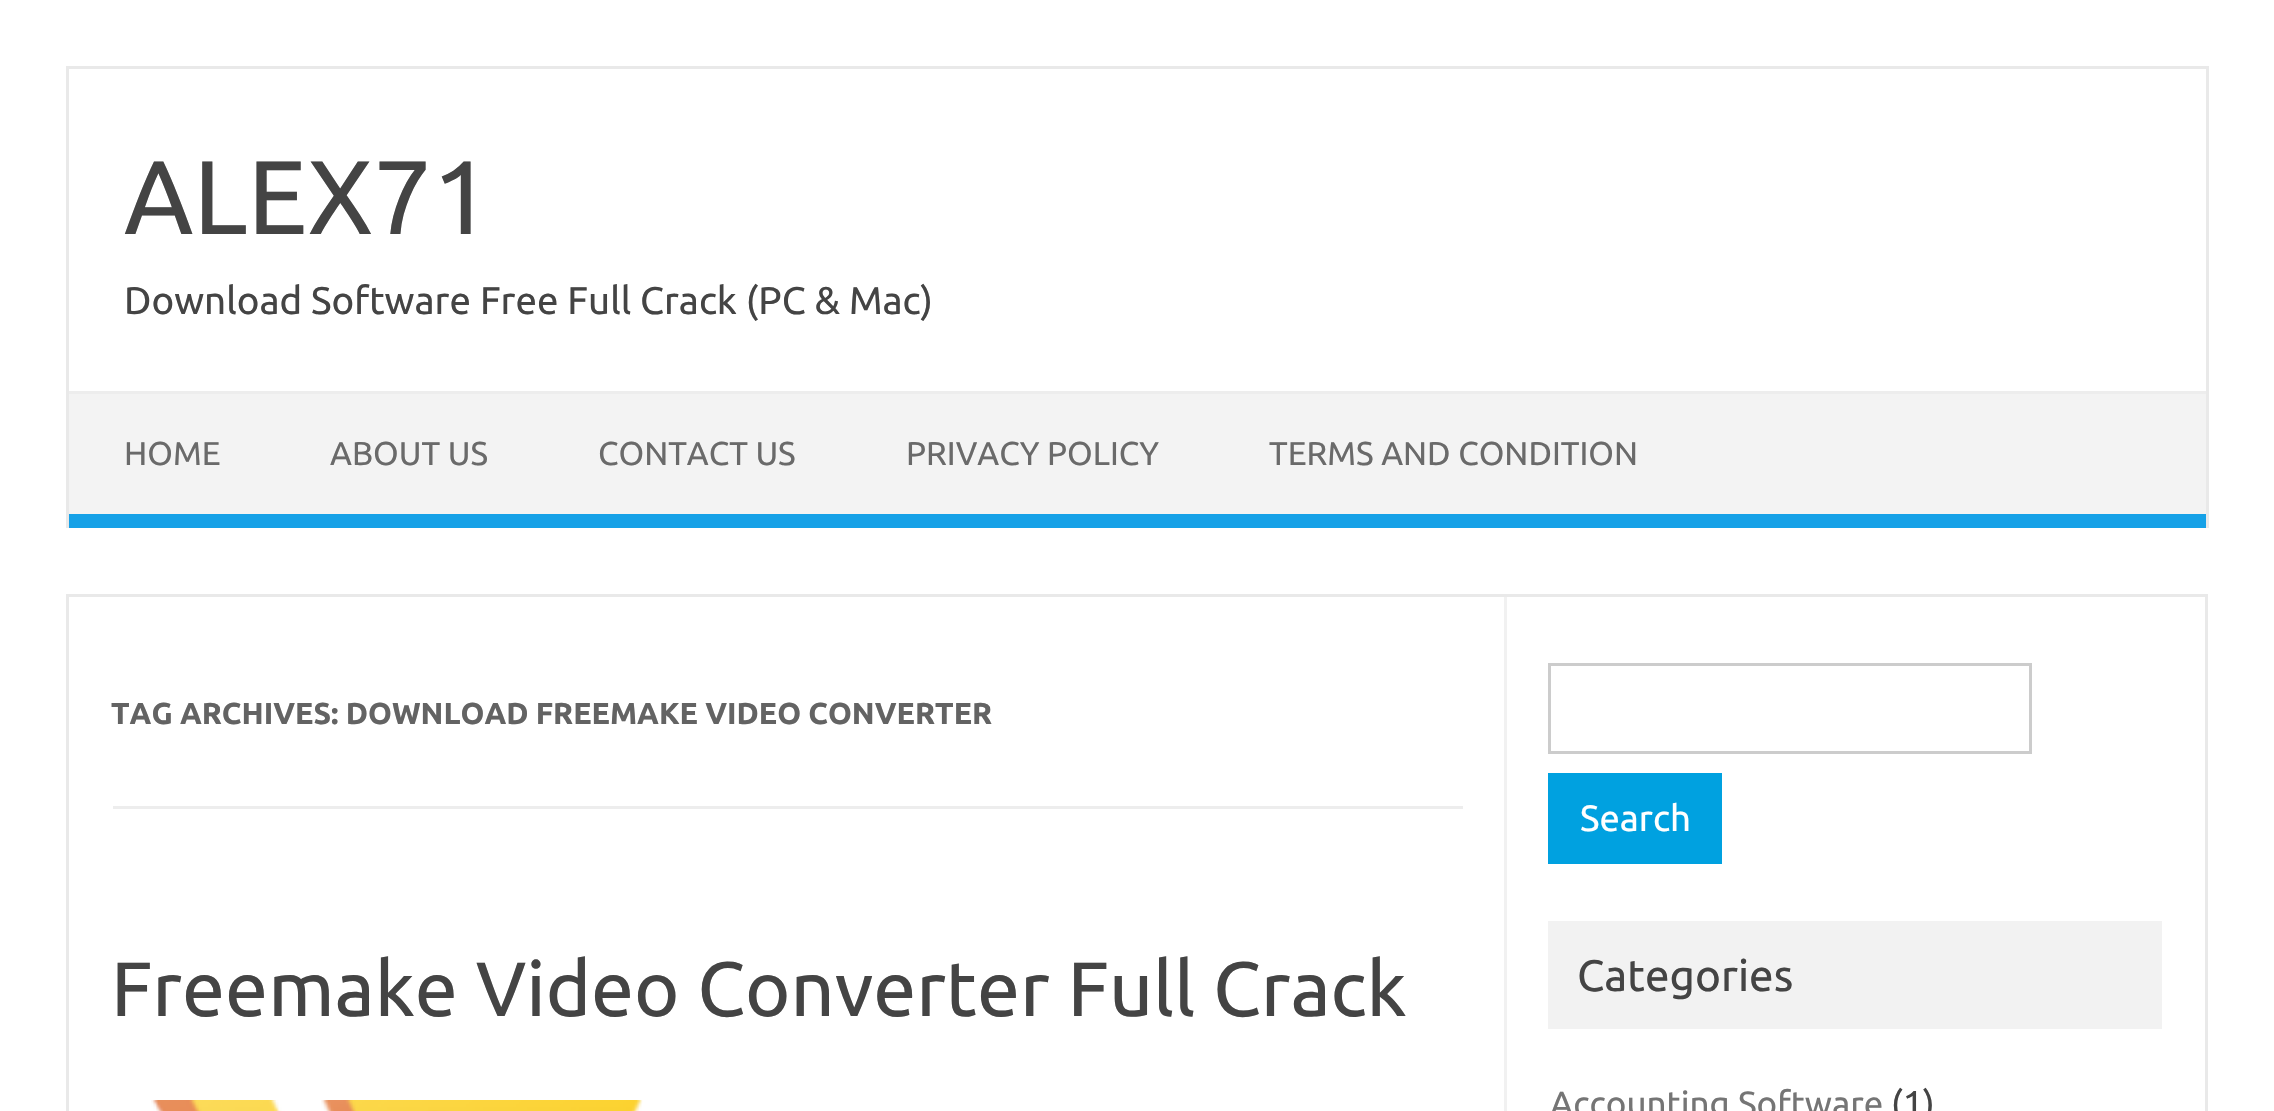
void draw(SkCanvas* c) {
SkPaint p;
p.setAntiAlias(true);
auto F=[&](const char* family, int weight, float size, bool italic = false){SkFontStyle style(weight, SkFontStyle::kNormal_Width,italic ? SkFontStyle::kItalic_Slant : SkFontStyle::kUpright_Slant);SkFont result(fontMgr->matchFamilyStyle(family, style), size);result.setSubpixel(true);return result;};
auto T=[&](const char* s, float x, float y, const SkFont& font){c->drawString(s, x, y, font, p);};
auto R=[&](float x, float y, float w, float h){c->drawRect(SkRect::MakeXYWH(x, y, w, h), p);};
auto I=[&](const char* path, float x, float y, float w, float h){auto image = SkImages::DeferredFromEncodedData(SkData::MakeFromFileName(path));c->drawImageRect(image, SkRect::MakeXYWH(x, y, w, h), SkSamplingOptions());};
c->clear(0xffffffff);
p.setColor(0xffe9e9e9);
R(66,66,2142,3);
R(2206,66,3,462);
R(66,66,3,462);
auto f1 = F("Ubuntu",400,104.5);
p.setColor(0xff444444);
T("ALEX71",124,234,f1);
auto f2 = F("Ubuntu",400,38.5);
T("Download Software Free Full Crack (PC & Mac)",124,314,f2);
p.setColor(0xfff3f3f3);
R(69,394,2137,120);
p.setColor(0xffededed);
R(69,391,2137,3);
p.setColor(0xff16a1e7);
R(69,514,2137,14);
auto f3 = F("Ubuntu",400,33);
p.setColor(0xff6a6a6a);
T("HOME",124,465,f3);
T("ABOUT US",330,465,f3);
T("CONTACT US",598,465,f3);
T("PRIVACY POLICY",906,465,f3);
T("TERMS AND CONDITION",1269,465,f3);
p.setStroke(true);
p.setStrokeWidth(3);
p.setColor(0xffe9e9e9);
c->drawRect(SkRect::MakeXYWH(67.5,595.5,2139,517),p);
p.setStroke(false);
p.setColor(0xfff1f1f1);
R(1504,597,3,514);
p.setColor(0xffededed);
R(113,806,1350,3);
auto f4 = F("Ubuntu",700,30.25);
p.setColor(0xff636363);
T("TAG ARCHIVES: DOWNLOAD FREEMAKE VIDEO CONVERTER",111,724,f4);
auto f5 = F("Ubuntu",400,77);
p.setColor(0xff444444);
T("Freemake Video Converter Full Crack",111,1016,f5);
I("1.png",151,1100,492,11);
p.setStroke(true);
p.setColor(0xffcccccc);
c->drawRect(SkRect::MakeXYWH(1549.5,664.5,481,88),p);
p.setStroke(false);
p.setColor(0xff00a1e0);
R(1548,773,174,91);
auto f6 = F("Ubuntu",400,36.5);
p.setColor(0xffffffff);
T("Search",1580,831,f6);
p.setColor(0xfff2f2f2);
R(1548,921,614,108);
auto f7 = F("Ubuntu",400,44);
p.setColor(0xff444444);
T("Categories",1577,991,f7);
auto f8 = F("Ubuntu",400,35);
p.setColor(0xff757575);
T("Accounting Software",1550,1116,f8);
auto f9 = F("Ubuntu",400,36);
p.setColor(0xff444444);
T("(1)",1891,1116,f9);
}
